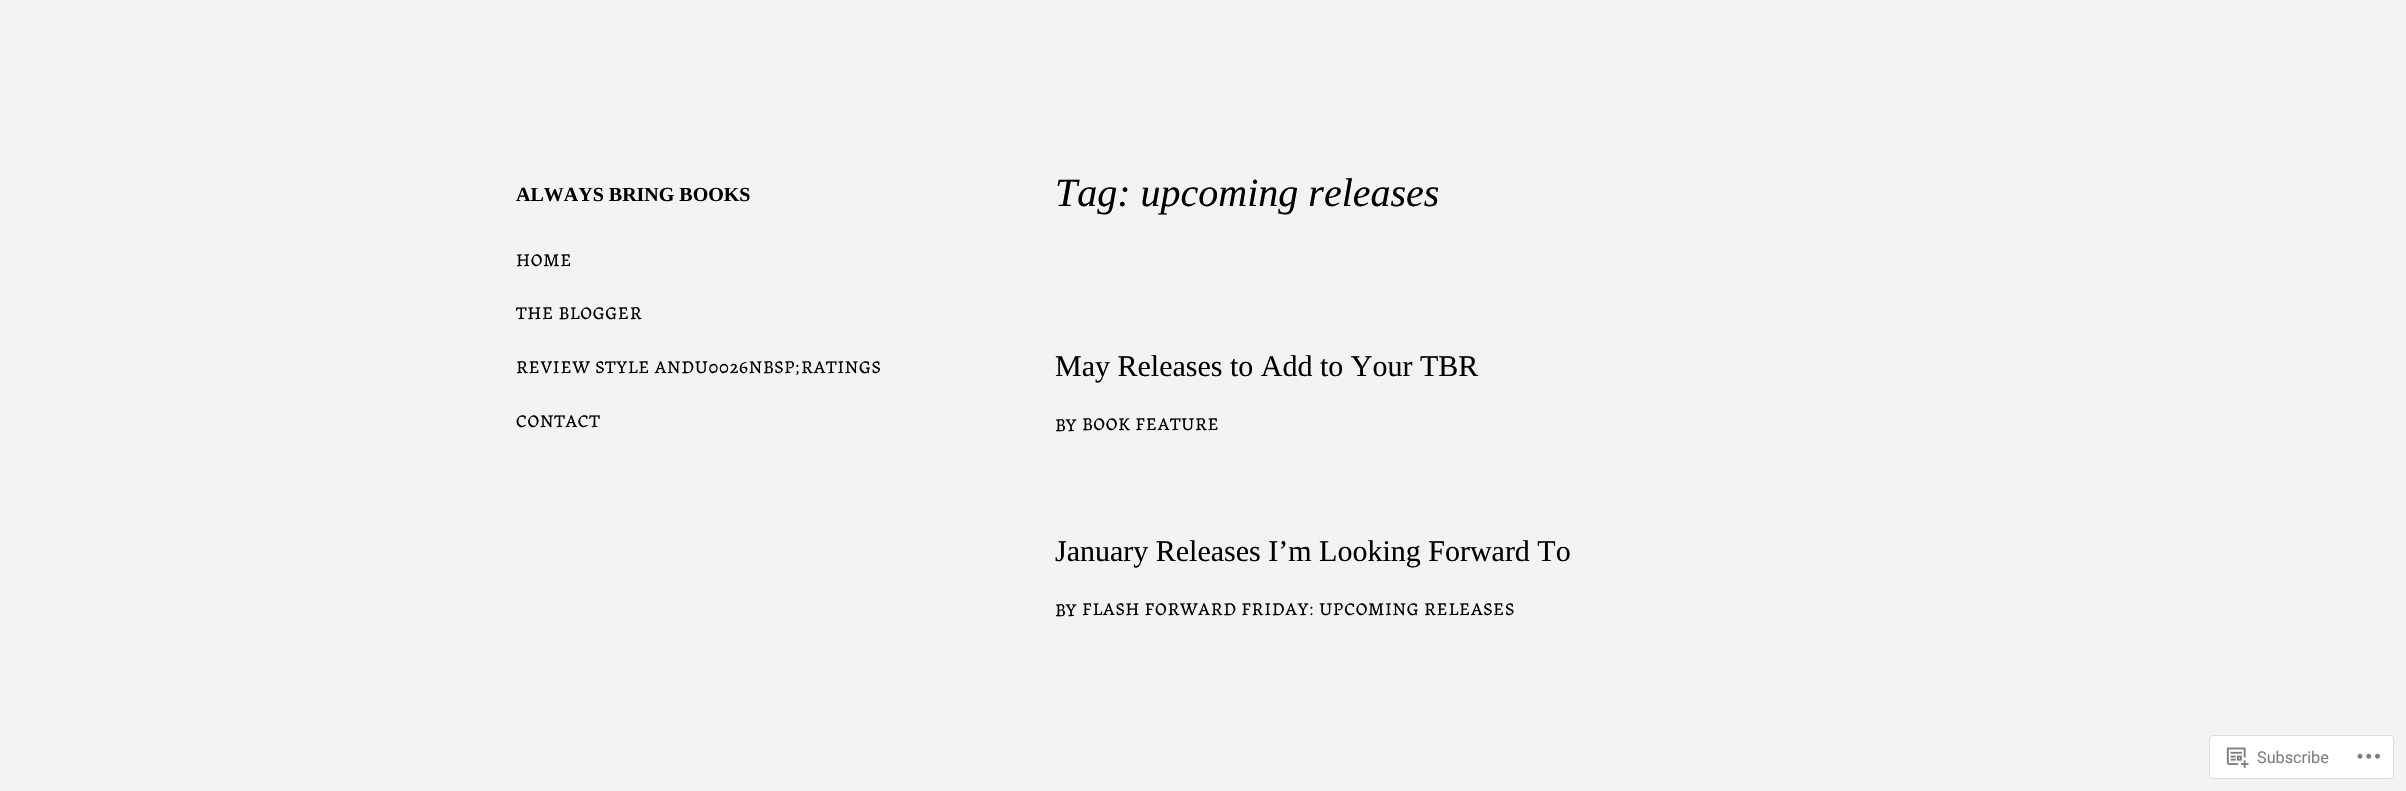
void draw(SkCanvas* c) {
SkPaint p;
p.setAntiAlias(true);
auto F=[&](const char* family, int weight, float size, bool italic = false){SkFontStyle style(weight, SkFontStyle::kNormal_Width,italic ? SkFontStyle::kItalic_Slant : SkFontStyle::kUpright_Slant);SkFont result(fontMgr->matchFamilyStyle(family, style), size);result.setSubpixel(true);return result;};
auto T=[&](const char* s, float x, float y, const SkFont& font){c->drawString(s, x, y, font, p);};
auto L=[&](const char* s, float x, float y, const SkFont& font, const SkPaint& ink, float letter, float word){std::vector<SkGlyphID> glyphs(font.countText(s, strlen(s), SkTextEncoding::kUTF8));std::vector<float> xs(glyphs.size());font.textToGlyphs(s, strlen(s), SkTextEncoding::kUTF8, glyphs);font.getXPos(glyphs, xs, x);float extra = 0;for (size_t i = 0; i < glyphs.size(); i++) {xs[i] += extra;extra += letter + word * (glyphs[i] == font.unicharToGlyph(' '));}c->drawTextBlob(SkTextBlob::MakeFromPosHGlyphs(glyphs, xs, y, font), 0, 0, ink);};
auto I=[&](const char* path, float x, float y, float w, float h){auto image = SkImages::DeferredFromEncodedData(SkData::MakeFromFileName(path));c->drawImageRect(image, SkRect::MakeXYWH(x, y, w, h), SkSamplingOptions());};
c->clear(0xfff5f3f1);
auto f1 = F("Liberation Serif",700,20);
p.setColor(0xff000000);
T("ALWAYS BRING BOOKS",516,201,f1);
auto f2 = F("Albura",400,18);
L("HOME",516,266,f2,p,.7,0);
L("THE BLOGGER",516,319,f2,p,.7,0);
L("REVIEW STYLE ANDU0026NBSP;RATINGS",516,373,f2,p,.7,0);
L("CONTACT",516,427,f2,p,.7,0);
auto f3 = F("Liberation Serif",400,40,true);
T("Tag: upcoming releases",1055,206,f3);
auto f4 = F("Liberation Serif",400,30);
T("May Releases to Add to Your TBR",1055,376,f4);
T("BY",1055,431,f2);
L("BOOK FEATURE",1082,430,f2,p,.7,0);
T("January Releases I’m Looking Forward To",1055,561,f4);
T("BY",1055,616,f2);
L("FLASH FORWARD FRIDAY: UPCOMING RELEASES",1082,615,f2,p,.7,0);
p.setColor(0xffffffff);
c->drawRoundRect(SkRect::MakeXYWH(2209.5,735.5,184,43),3.5,3.5,p);
p.setStroke(true);
p.setStrokeWidth(1);
p.setColor(0xffdddcde);
c->drawRoundRect(SkRect::MakeXYWH(2209.5,735.5,184,43),3.5,3.5,p);
I("1.png",2226,747,23,21);
auto f5 = F("Roboto",400,16.25);
p.setStroke(false);
p.setColor(0xff7b7e84);
T("Subscribe",2257,763,f5);
I("2.png",2357,753,23,6);
}
